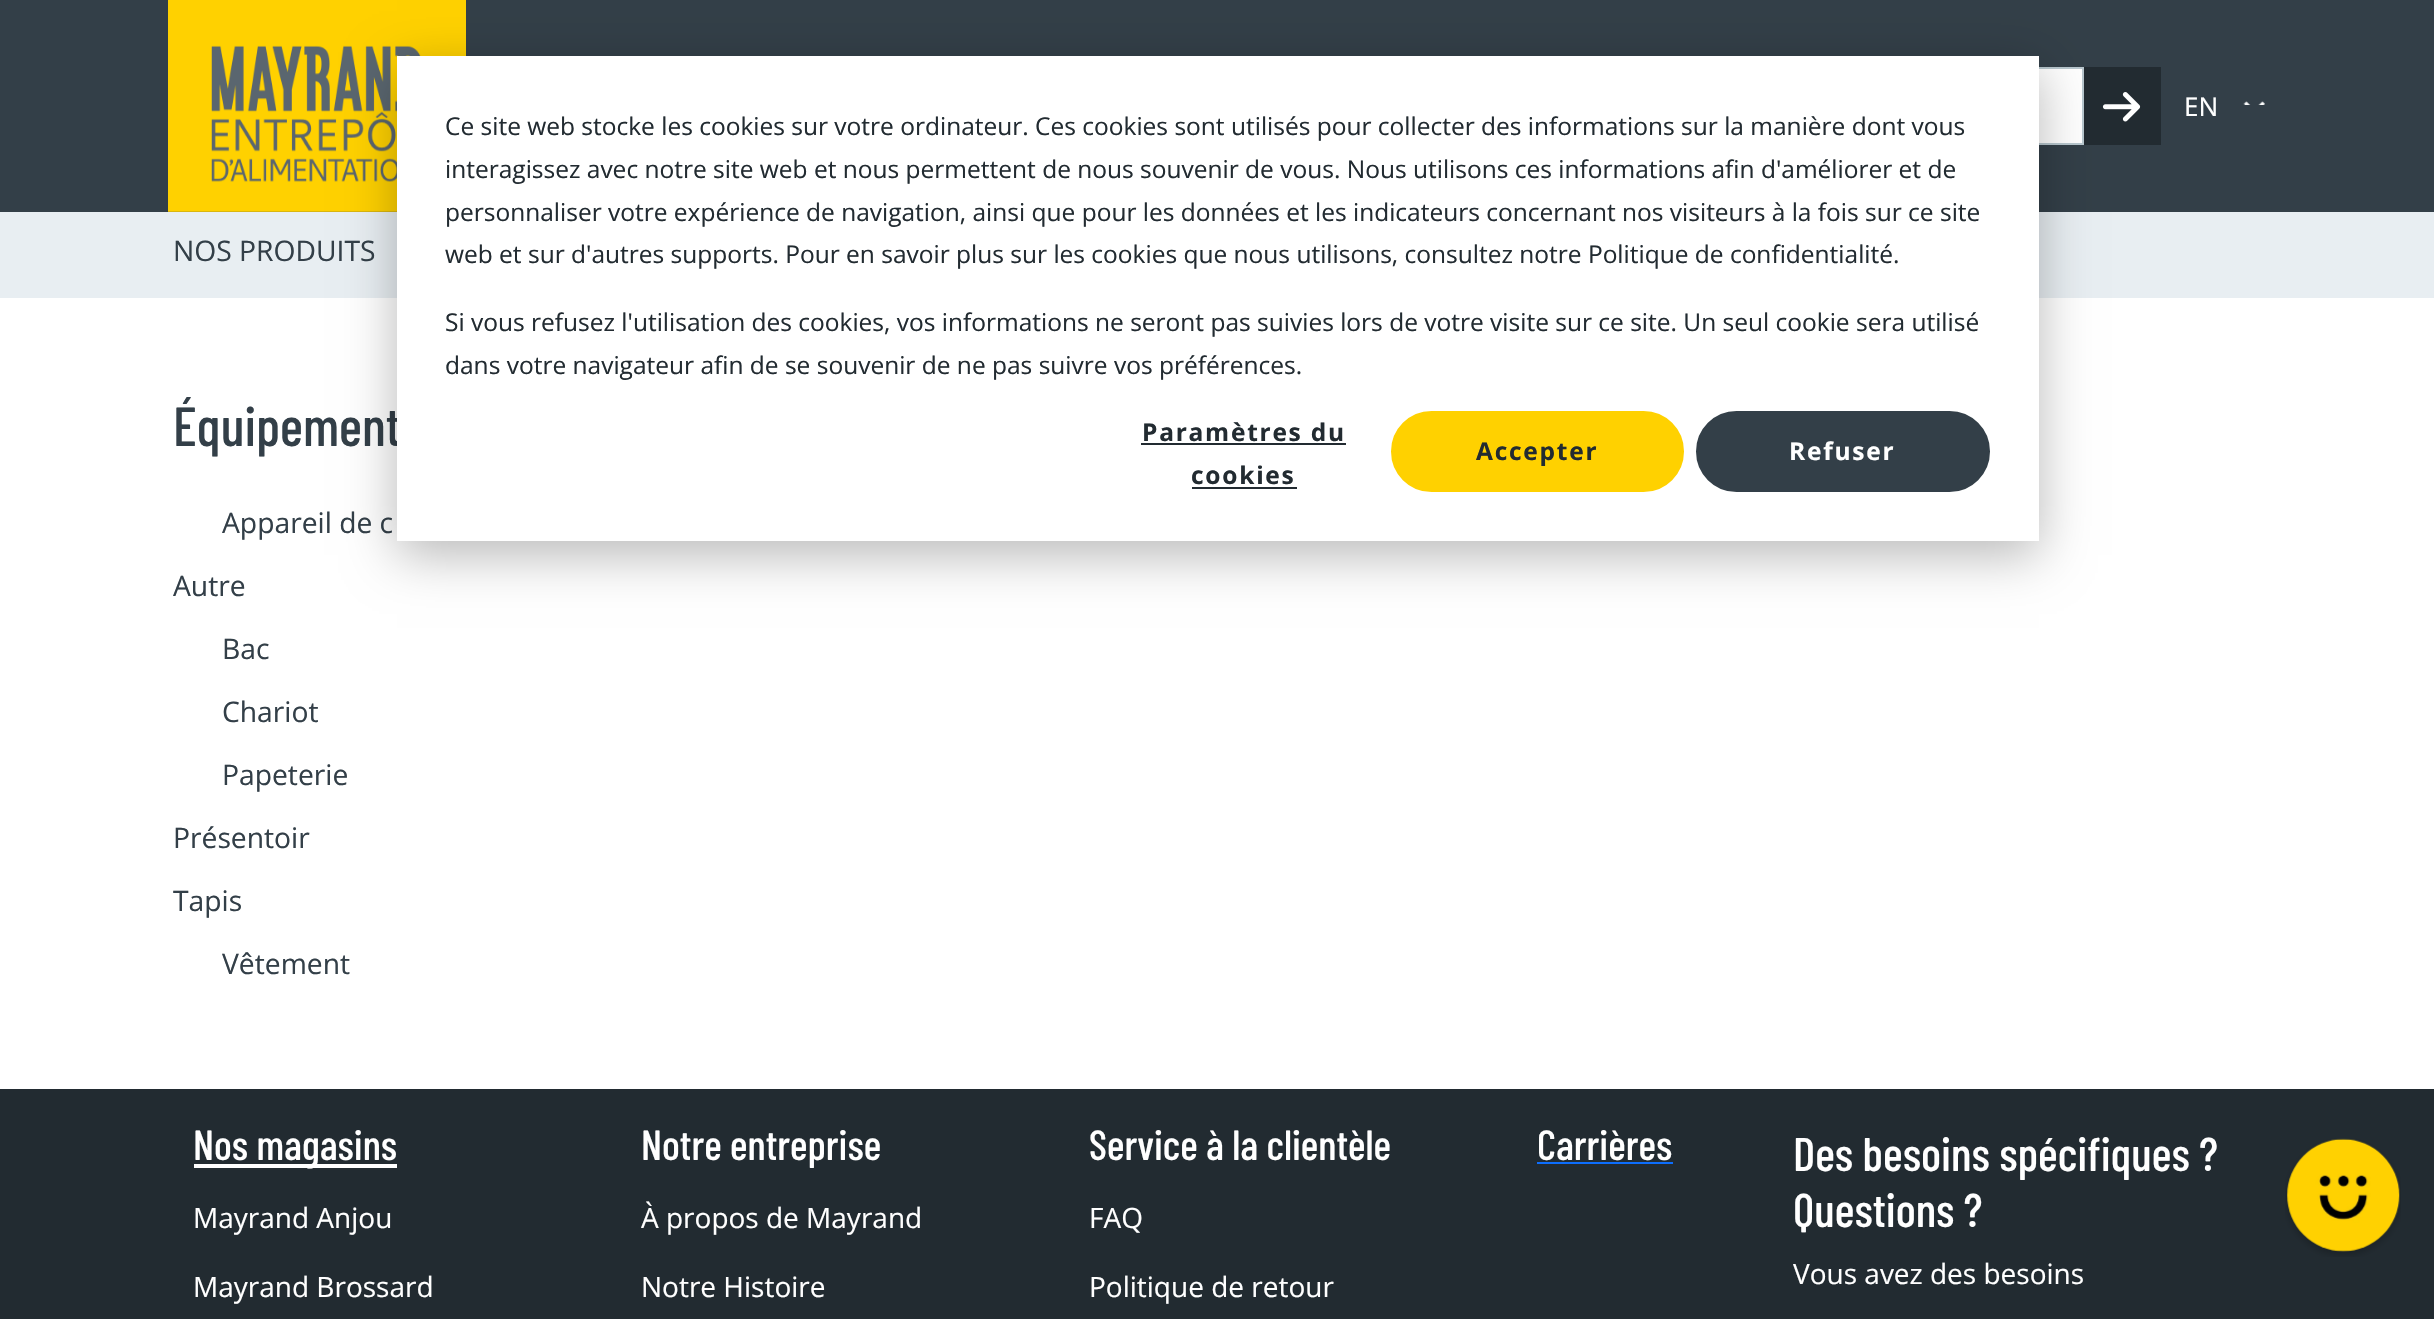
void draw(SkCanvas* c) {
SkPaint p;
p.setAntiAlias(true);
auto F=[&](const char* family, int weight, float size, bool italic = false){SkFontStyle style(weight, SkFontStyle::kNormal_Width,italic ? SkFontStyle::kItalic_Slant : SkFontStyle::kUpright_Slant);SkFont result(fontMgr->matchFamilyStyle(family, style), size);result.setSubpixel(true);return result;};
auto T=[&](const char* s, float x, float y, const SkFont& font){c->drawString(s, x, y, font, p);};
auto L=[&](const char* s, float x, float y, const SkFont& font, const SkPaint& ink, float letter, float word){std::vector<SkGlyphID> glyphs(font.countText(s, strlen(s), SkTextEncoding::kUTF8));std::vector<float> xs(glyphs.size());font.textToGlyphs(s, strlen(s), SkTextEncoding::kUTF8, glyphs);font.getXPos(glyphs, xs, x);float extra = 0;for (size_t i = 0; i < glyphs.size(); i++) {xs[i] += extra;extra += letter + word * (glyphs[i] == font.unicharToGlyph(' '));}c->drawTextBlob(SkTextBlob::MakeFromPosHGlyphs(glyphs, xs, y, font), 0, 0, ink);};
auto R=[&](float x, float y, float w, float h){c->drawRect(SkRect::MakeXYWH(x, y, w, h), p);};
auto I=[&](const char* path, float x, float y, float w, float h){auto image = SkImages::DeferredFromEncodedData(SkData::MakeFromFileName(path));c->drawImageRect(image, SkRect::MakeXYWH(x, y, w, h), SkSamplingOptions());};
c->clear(0xffffffff);
p.setColor(0xff333f48);
R(0,0,2434,212);
I("1.png",168,0,298,212);
p.setColor(0xffffffff);
R(2039,69,43,74);
p.setStroke(true);
p.setStrokeWidth(2);
p.setColor(0xffb8c7ce);
c->drawRect(SkRect::MakeXYWH(1725,68,358,76),p);
p.setStroke(false);
p.setColor(0xff222b31);
R(2084,67,77,78);
I("2.png",2102,92,39,30);
auto f1 = F("Noto Sans",400,26);
p.setColor(0xffffffff);
T("EN",2184,116,f1);
I("3.png",2243,101,22,4);
p.setColor(0xffe8eef2);
R(0,212,2434,86);
auto f2 = F("Open Sans",400,28.25);
p.setColor(0xff333f48);
T("NOS PRODUITS",173,261,f2);
auto f3 = F("Barlow Condensed",500,55);
T("Équipement",173,446,f3);
T("Appareil de c",222,533,f2);
T("Autre",173,596,f2);
T("Bac",222,659,f2);
T("Chariot",222,722,f2);
T("Papeterie",222,785,f2);
T("Présentoir",173,848,f2);
T("Tapis",173,911,f2);
T("Vêtement",222,974,f2);
p.setColor(0xff222b31);
R(0,1089,2434,230);
p.setColor(0xffffffff);
R(194,1164,203,4);
auto f4 = F("Barlow Condensed",500,42);
T("Nos magasins",193,1160,f4);
auto f5 = F("Open Sans",400,28);
T("Mayrand Anjou",193,1228,f5);
T("Mayrand Brossard",193,1297,f5);
T("Notre entreprise",641,1160,f4);
T("À propos de Mayrand",641,1228,f5);
T("Notre Histoire",641,1297,f5);
T("Service à la clientèle",1089,1160,f4);
T("FAQ",1089,1228,f5);
T("Politique de retour",1089,1297,f5);
T("Carrières",1537,1160,f4);
p.setColor(0xff0d6efd);
R(1537,1162,136,2);
auto f6 = F("Barlow Condensed",500,47.25);
p.setColor(0xffffffff);
T("Des besoins spécifiques ?",1793,1171,f6);
T("Questions ?",1793,1227,f6);
T("Vous avez des besoins",1793,1284,f5);
p.setColor(0x47000000);
p.setMaskFilter(SkMaskFilter::MakeBlur(kNormal_SkBlurStyle, 24.5));
c->drawRect(SkRect::MakeXYWH(397,70,1642,485),p);
p.setMaskFilter(nullptr);
p.setColor(0xffffffff);
R(397,56,1642,485);
auto f7 = F("Open Sans",400,24.5);
p.setColor(0xff222b31);
T("Ce site web stocke les cookies sur votre ordinateur. Ces cookies sont utilisés pour collecter des informations sur la manière dont vous",445,135,f7);
T("interagissez avec notre site web et nous permettent de nous souvenir de vous. Nous utilisons ces informations afin d'améliorer et de",445,178,f7);
T("personnaliser votre expérience de navigation, ainsi que pour les données et les indicateurs concernant nos visiteurs à la fois sur ce site",445,221,f7);
T("web et sur d'autres supports. Pour en savoir plus sur les cookies que nous utilisons, consultez notre Politique de confidentialité.",445,263,f7);
T("Si vous refusez l'utilisation des cookies, vos informations ne seront pas suivies lors de votre visite sur ce site. Un seul cookie sera utilisé",445,331,f7);
T("dans votre navigateur afin de se souvenir de ne pas suivre vos préférences.",445,374,f7);
auto f8 = F("Open Sans",700,24.5);
L("Paramètres du",1142,441,f8,p,1.75,0);
R(1141,443,205,2);
L("cookies",1191,484,f8,p,1.75,0);
R(1192,487,105,2);
p.setColor(0xffffd100);
c->drawRoundRect(SkRect::MakeXYWH(1392,412,291,79),39.5,39.5,p);
p.setStroke(true);
c->drawRoundRect(SkRect::MakeXYWH(1392,412,291,79),39.5,39.5,p);
p.setStroke(false);
p.setColor(0xff222b31);
L("Accepter",1476,460,f8,p,1.75,0);
p.setColor(0xff333f48);
c->drawRoundRect(SkRect::MakeXYWH(1697,412,292,79),39.5,39.5,p);
p.setStroke(true);
c->drawRoundRect(SkRect::MakeXYWH(1697,412,292,79),39.5,39.5,p);
p.setStroke(false);
p.setColor(0xffffffff);
L("Refuser",1789,460,f8,p,1.75,0);
I("4.png",2285,1138,116,119);
}
